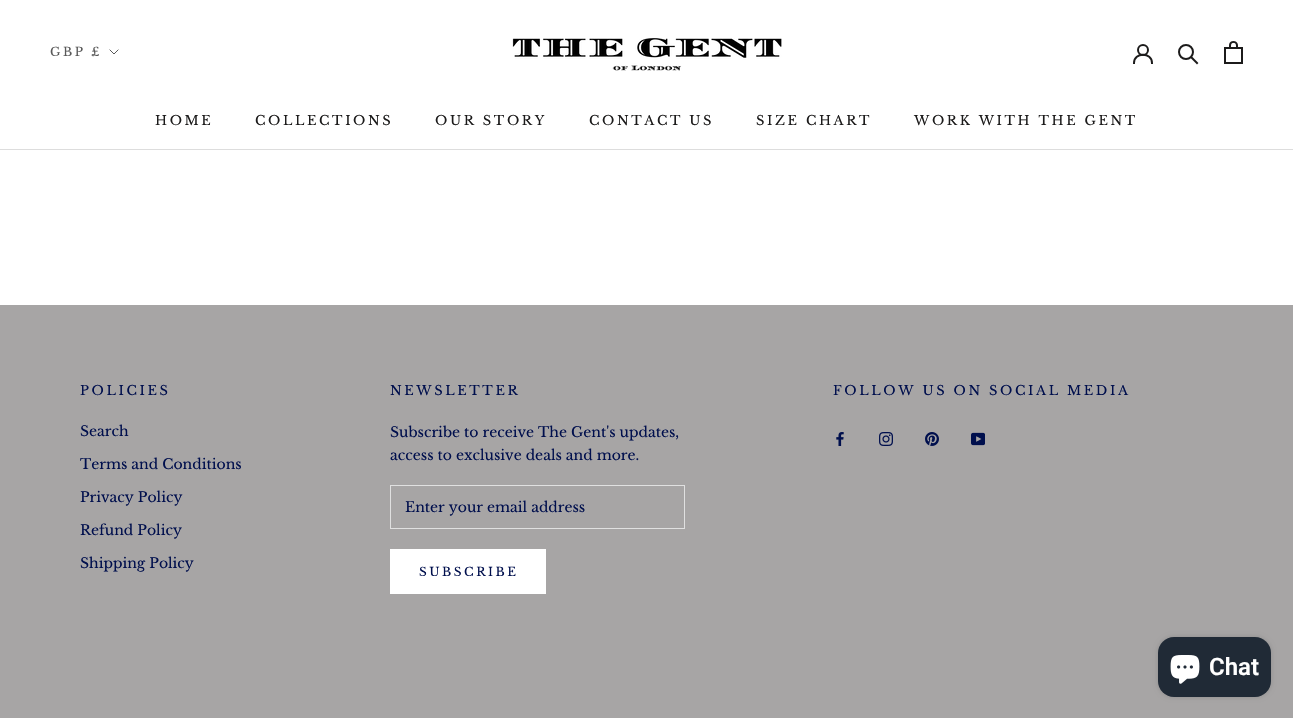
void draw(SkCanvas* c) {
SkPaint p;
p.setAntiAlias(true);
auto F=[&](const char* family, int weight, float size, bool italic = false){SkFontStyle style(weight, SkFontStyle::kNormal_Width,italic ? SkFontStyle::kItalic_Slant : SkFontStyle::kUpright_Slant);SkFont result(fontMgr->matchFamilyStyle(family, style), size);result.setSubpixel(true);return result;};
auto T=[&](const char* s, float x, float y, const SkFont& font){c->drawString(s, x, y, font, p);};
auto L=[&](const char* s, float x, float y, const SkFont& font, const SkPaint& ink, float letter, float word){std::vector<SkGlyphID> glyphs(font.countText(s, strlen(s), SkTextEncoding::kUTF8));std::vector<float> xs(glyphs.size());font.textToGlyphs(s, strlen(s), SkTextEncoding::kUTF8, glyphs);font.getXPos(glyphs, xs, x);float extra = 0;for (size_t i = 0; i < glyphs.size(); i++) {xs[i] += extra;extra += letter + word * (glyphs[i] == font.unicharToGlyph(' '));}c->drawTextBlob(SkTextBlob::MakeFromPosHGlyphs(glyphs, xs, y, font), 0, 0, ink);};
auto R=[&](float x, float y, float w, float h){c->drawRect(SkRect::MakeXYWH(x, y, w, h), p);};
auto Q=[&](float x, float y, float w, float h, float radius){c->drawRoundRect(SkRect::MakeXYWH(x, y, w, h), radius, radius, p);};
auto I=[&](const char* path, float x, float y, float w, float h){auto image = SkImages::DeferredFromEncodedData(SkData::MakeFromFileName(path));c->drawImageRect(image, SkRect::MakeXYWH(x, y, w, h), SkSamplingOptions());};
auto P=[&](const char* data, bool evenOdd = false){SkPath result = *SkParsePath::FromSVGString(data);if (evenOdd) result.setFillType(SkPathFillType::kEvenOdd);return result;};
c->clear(0xffffffff);
p.setColor(0xffdddddd);
R(0,149,1293,1);
I("1.png",512,38,270,33);
p.setStroke(true);
p.setStrokeWidth(2);
p.setStrokeCap(SkPaint::kSquare_Cap);
p.setColor(0xff1c1b1b);
c->drawPath(P("M1134 63c0-11 18-11 18 0"),p);
p.setStrokeCap(SkPaint::kButt_Cap);
c->drawCircle(1143,50,5,p);
p.setStrokeCap(SkPaint::kSquare_Cap);
c->drawPath(P("M1197 63l-5.5-5.5"),p);
p.setStrokeCap(SkPaint::kButt_Cap);
c->drawCircle(1186,52,7,p);
I("2.png",1224,41,19,23);
auto f1 = F("Libre Baskerville",400,12);
p.setStroke(false);
p.setColor(0xff595959);
L("GBP £",50,56,f1,p,2.5,0);
p.setStroke(true);
p.setStrokeWidth(1);
p.setStrokeCap(SkPaint::kSquare_Cap);
c->drawPath(P("M118 50l-4 4l-4-4"),p);
auto f2 = F("Libre Baskerville",400,13);
p.setStroke(false);
p.setColor(0xff1c1b1b);
L("HOME",155,125,f2,p,2.6,0);
L("COLLECTIONS",255,125,f2,p,2.6,0);
L("OUR STORY",435,125,f2,p,2.6,0);
L("CONTACT US",589,125,f2,p,2.6,0);
L("SIZE CHART",756,125,f2,p,2.6,0);
L("WORK WITH THE GENT",914,125,f2,p,2.6,0);
p.setColor(0xffa7a5a5);
R(0,305,1293,413);
p.setColor(0xff000f4d);
L("POLICIES",80,395,f2,p,2.6,0);
auto f3 = F("Libre Baskerville",400,14);
T("Search",80,436,f3);
T("Terms and Conditions",80,469,f3);
T("Privacy Policy",80,502,f3);
T("Refund Policy",80,535,f3);
T("Shipping Policy",80,568,f3);
L("NEWSLETTER",390,395,f2,p,2.6,0);
T("Subscribe to receive The Gent's updates,",390,437,f3);
T("access to exclusive deals and more.",390,460,f3);
p.setStroke(true);
p.setStrokeCap(SkPaint::kButt_Cap);
p.setColor(0xffe0e0e0);
c->drawRect(SkRect::MakeXYWH(390.5,485.5,294,43),p);
p.setStroke(false);
p.setColor(0xff000f4d);
T("Enter your email address",405,512,f3);
p.setStroke(true);
p.setColor(0xffffffff);
c->drawRect(SkRect::MakeXYWH(390.5,549.5,155,44),p);
p.setStroke(false);
R(391,550,154,43);
p.setColor(0xff000f4d);
L("SUBSCRIBE",419,576,f1,p,2.5,0);
L("FOLLOW US ON SOCIAL MEDIA",833,395,f2,p,2.6,0);
I("3.png",836,432,8,14);
I("4.png",879,432,14,14);
I("5.png",925,432,14,14);
I("6.png",971,432,14,14);
p.setColor(0x26000000);
p.setMaskFilter(SkMaskFilter::MakeBlur(kNormal_SkBlurStyle, 2.5));
c->drawRoundRect(SkRect::MakeXYWH(1158,637,113,60),16,16,p);
p.setMaskFilter(nullptr);
p.setColor(0xff202a36);
Q(1158,637,113,60,16);
I("7.png",1170,655,30,29);
auto f4 = F("Roboto",600,24);
p.setColor(0xffffffff);
T("Chat",1209,675,f4);
}
